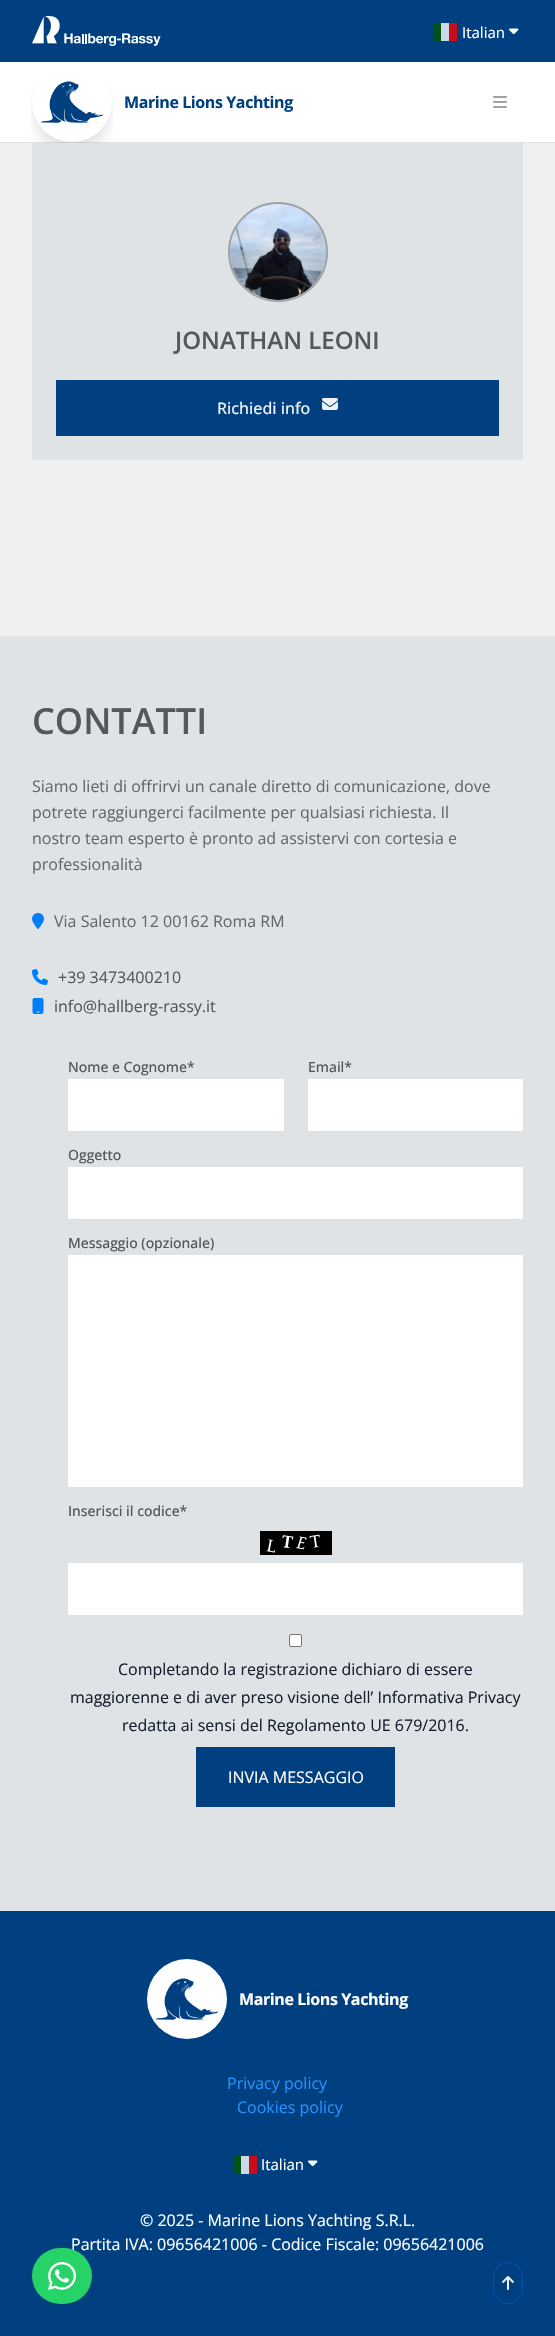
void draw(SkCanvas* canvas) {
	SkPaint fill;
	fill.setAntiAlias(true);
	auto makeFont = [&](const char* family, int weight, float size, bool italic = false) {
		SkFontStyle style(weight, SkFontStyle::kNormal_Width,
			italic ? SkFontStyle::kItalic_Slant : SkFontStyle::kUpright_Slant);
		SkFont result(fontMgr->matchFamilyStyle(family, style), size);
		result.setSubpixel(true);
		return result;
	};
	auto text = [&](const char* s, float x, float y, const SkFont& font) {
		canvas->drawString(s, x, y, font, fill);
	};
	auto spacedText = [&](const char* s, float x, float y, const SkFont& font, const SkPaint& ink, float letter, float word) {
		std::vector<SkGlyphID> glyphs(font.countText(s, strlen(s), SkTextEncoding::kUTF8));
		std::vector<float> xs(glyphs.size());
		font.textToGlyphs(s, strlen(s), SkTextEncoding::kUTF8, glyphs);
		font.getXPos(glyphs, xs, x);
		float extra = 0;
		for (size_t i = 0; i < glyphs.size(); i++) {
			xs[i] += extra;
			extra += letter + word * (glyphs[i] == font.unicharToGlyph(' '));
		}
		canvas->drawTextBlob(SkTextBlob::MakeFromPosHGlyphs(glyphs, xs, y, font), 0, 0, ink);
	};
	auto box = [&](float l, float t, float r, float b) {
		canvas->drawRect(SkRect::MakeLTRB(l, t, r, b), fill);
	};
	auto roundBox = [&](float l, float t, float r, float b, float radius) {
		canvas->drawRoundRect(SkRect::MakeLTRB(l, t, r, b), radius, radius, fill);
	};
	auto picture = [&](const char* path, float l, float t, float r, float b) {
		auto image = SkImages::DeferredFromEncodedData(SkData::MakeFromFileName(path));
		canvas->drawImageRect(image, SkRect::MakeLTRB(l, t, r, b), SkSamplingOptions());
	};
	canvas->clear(0xFF004080);
	fill.setColor(0xFFE0E3E5);
	box(0, 142, 555, 143);
	picture("image0.png", 32, 16, 161, 46);
	fill.setColor(0xFF00521A);
	box(433, 23, 441, 41);
	fill.setColor(0xFFCCD9E6);
	box(441, 23, 449, 41);
	fill.setColor(0xFFCA0D1A);
	box(449, 23, 457, 41);
	picture("image1.png", 509, 28, 519, 35);
	fill.setColor(0xFFFFFFFF);
	box(0, 62, 555, 142);
	picture("image2.png", 31, 81, 113, 143);
	picture("image3.png", 493, 96, 507, 108);
	fill.setColor(0xFFEEF0F1);
	box(0, 143, 555, 636);
	fill.setColor(0xFFE0E3E5);
	box(0, 636, 555, 1911);
	box(32, 143, 523, 460);
	picture("image4.png", 230, 204, 326, 300);
	fill.setStyle(SkPaint::kStroke_Style);
	fill.setStrokeWidth(2);
	fill.setColor(0xFF9DA2AA);
	canvas->drawCircle(278, 252, 49, fill);
	fill.setStyle(SkPaint::kFill_Style);
	fill.setColor(0xFF004080);
	box(56, 380, 499, 436);
	picture("image5.png", 322, 398, 338, 410);
	picture("image6.png", 32, 913, 44, 929);
	picture("image7.png", 32, 969, 48, 985);
	picture("image8.png", 32, 998, 44, 1014);
	fill.setColor(0xFFFFFFFF);
	box(68, 1079, 284, 1131);
	box(308, 1079, 523, 1131);
	box(68, 1167, 523, 1219);
	box(68, 1255, 523, 1487);
	picture("image9.png", 260, 1531, 332, 1555);
	box(68, 1563, 523, 1615);
	canvas->drawRoundRect(SkRect::MakeLTRB(289.5f, 1634.5f, 301.5f, 1646.5f), 1.5f, 1.5f, fill);
	fill.setStyle(SkPaint::kStroke_Style);
	fill.setStrokeWidth(1);
	fill.setColor(0xFF767676);
	canvas->drawRoundRect(SkRect::MakeLTRB(289.5f, 1634.5f, 301.5f, 1646.5f), 1.5f, 1.5f, fill);
	fill.setStyle(SkPaint::kFill_Style);
	fill.setColor(0xFF004080);
	box(196, 1747, 395, 1807);
	picture("image10.png", 147, 1959, 227, 2039);
	fill.setColor(0xFF00521A);
	box(233, 2156, 241, 2174);
	fill.setColor(0xFFCCD9E6);
	box(241, 2156, 249, 2174);
	fill.setColor(0xFFCA0D1A);
	box(249, 2156, 257, 2174);
	picture("image1.png", 308, 2160, 318, 2167);
	fill.setStyle(SkPaint::kStroke_Style);
	fill.setColor(0xFF0054A9);
	canvas->drawRoundRect(SkRect::MakeLTRB(493.5f, 2262.5f, 522.5f, 2303.5f), 14.5f, 14.5f, fill);
	picture("image12.png", 502, 2276, 514, 2290);
	auto font1 = makeFont("Open Sans", 400, 15);
	fill.setStyle(SkPaint::kFill_Style);
	fill.setColor(0xFFFFFFFF);
	text("Italian", 462, 38, font1);
	auto font2 = makeFont("Open Sans", 700, 16);
	fill.setColor(0xFF004080);
	spacedText("Marine Lions Yachting", 124, 108, font2, fill, -0.4f, 0);
	auto font3 = makeFont("Open Sans", 600, 24);
	fill.setColor(0xFF54575B);
	text("JONATHAN LEONI", 175, 349, font3);
	auto font4 = makeFont("Open Sans", 500, 16);
	fill.setColor(0xFFEEF0F1);
	text("Richiedi info", 217, 414, font4);
	auto font5 = makeFont("Open Sans", 600, 36);
	fill.setColor(0xFF54575B);
	text("CONTATTI", 32, 734, font5);
	auto font6 = makeFont("Open Sans", 400, 16);
	fill.setColor(0xFF65686E);
	text("Siamo lieti di offrirvi un canale diretto di comunicazione, dove", 32, 792, font6);
	text("potrete raggiungerci facilmente per qualsiasi richiesta. Il", 32, 818, font6);
	text("nostro team esperto è pronto ad assistervi con cortesia e", 32, 844, font6);
	text("professionalità", 32, 870, font6);
	text("Via Salento 12 00162 Roma RM", 54, 927, font6);
	fill.setColor(0xFF54575B);
	text("+39 3473400210", 58, 983, font6);
	text("info@hallberg-rassy.it", 54, 1012, font6);
	auto font7 = makeFont("Open Sans", 500, 14);
	text("Nome e Cognome*", 68, 1072, font7);
	text("Email*", 308, 1072, font7);
	text("Oggetto", 68, 1160, font7);
	text("Messaggio (opzionale)", 68, 1248, font7);
	text("Inserisci il codice*", 68, 1516, font7);
	fill.setColor(0xFF161E2F);
	text("Completando la registrazione dichiaro di essere", 118, 1675, font6);
	text("maggiorenne e di aver preso visione dell’ Informativa Privacy", 70, 1703, font6);
	text("redatta ai sensi del Regolamento UE 679/2016.", 122, 1731, font6);
	fill.setColor(0xFFFFFFFF);
	text("INVIA MESSAGGIO", 228, 1783, font6);
	spacedText("Marine Lions Yachting", 239, 2005, font2, fill, -0.4f, 0);
	fill.setColor(0xFF2492FF);
	text("Privacy policy", 227, 2089, font6);
	text("Cookies policy", 237, 2113, font6);
	fill.setColor(0xFFFFFFFF);
	text("Italian", 261, 2170, font1);
	text("© 2025 - Marine Lions Yachting S.R.L.", 140, 2226, font6);
	text("Partita IVA: 09656421006 - Codice Fiscale: 09656421006", 71, 2250, font6);
	fill.setColor(0xFF25D366);
	roundBox(32, 2248, 92, 2304, 28);
	picture("image11.png", 48, 2262, 76, 2290);
}
